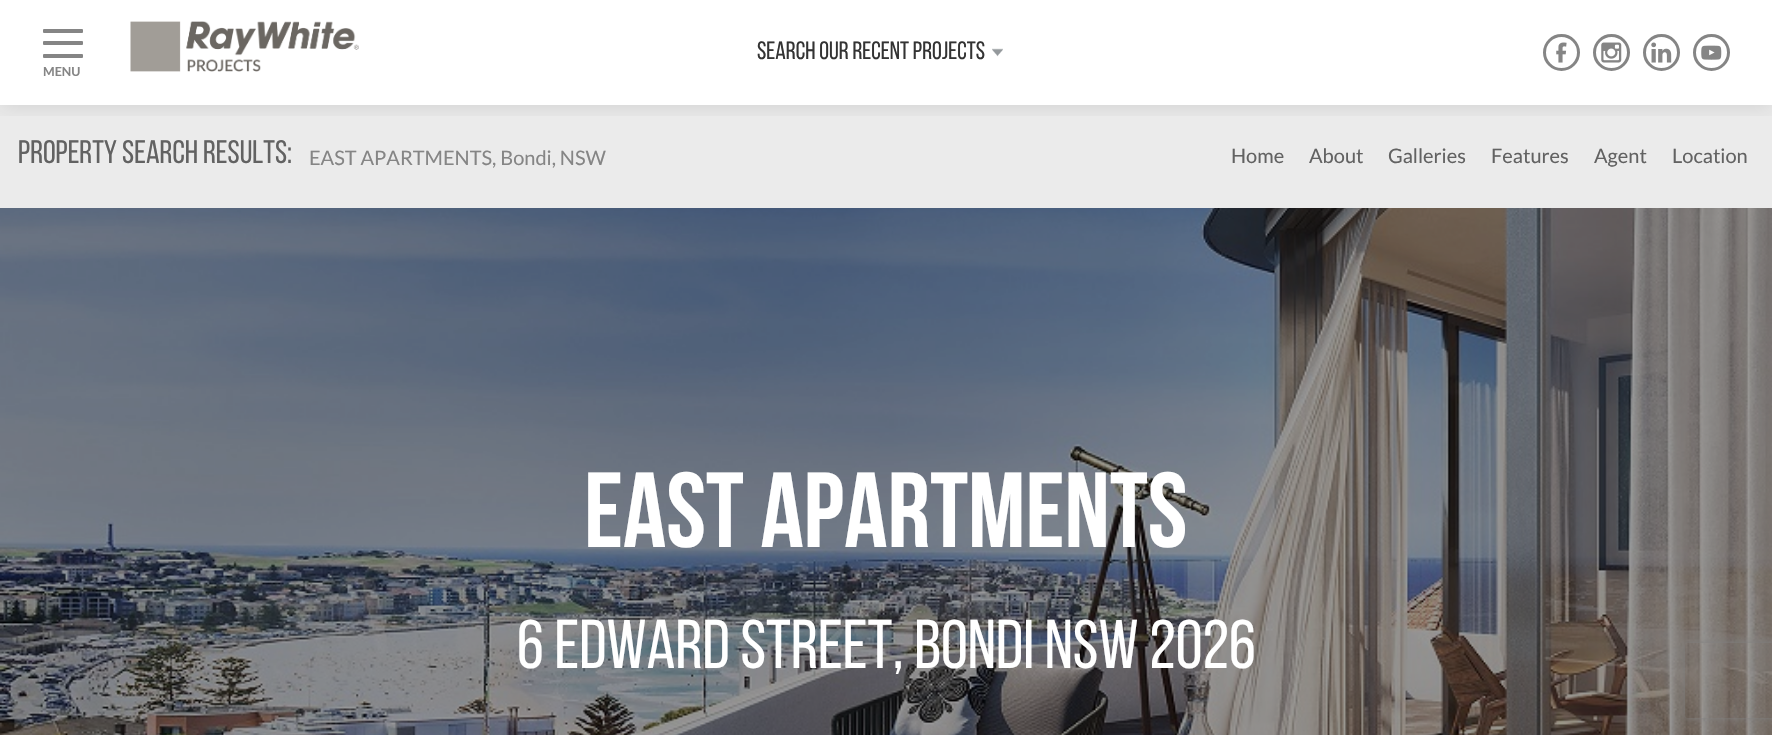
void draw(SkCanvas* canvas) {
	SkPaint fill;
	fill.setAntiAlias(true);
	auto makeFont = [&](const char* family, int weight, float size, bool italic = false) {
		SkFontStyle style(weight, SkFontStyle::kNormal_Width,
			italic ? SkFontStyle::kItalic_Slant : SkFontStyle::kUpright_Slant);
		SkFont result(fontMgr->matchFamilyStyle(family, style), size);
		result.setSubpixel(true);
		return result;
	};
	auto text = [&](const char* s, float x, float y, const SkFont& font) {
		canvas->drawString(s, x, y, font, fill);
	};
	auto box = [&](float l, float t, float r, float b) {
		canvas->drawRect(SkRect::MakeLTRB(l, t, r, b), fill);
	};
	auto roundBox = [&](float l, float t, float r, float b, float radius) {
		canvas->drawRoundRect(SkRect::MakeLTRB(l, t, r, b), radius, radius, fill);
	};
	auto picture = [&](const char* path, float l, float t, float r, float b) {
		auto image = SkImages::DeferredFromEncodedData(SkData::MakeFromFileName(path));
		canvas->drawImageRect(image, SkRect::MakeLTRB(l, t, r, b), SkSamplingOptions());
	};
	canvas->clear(0xFFFFFFFF);
	fill.setColor(0xFFEBEBEB);
	box(0, 105, 1772, 208);
	canvas->save();
	canvas->clipRect(SkRect::MakeLTRB(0, 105, 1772, 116));
	fill.setColor(0x1A000000);
	fill.setMaskFilter(SkMaskFilter::MakeBlur(kNormal_SkBlurStyle, 10));
	canvas->drawRect(SkRect::MakeLTRB(0, 3, 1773, 108), fill);
	fill.setMaskFilter(nullptr);
	canvas->restore();
	picture("image0.png", 130, 21, 359, 72);
	picture("image1.png", 992, 48, 1003, 57);
	fill.setStyle(SkPaint::kStroke_Style);
	fill.setStrokeWidth(3);
	fill.setColor(0xFF858585);
	canvas->drawCircle(1561.5f, 52.5f, 17, fill);
	picture("image2.png", 1556, 42, 1567, 63);
	canvas->drawCircle(1611.5f, 52.5f, 17, fill);
	picture("image3.png", 1601, 42, 1622, 63);
	canvas->drawCircle(1661.5f, 52.5f, 17, fill);
	picture("image4.png", 1651, 42, 1672, 63);
	canvas->drawCircle(1711.5f, 52.5f, 17, fill);
	picture("image5.png", 1701, 45, 1722, 60);
	fill.setStyle(SkPaint::kFill_Style);
	roundBox(43, 41, 83, 45, 1);
	roundBox(43, 29, 83, 33, 1);
	roundBox(43, 54, 83, 58, 1);
	picture("image6.png", 0, 208, 1772, 735);
	canvas->save();
	canvas->clipPath(SkPathBuilder(SkPathFillType::kEvenOdd).moveTo(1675, 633).lineTo(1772, 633).lineTo(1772, 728).lineTo(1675, 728).close().moveTo(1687.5f, 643).lineTo(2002.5f, 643).cubicTo(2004, 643, 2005, 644, 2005, 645.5f).lineTo(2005, 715.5f).cubicTo(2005, 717, 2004, 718, 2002.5f, 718).lineTo(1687.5f, 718).cubicTo(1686, 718, 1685, 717, 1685, 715.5f).lineTo(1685, 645.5f).cubicTo(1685, 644, 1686, 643, 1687.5f, 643).close().detach(), true);
	fill.setColor(0xFF808080);
	fill.setMaskFilter(SkMaskFilter::MakeBlur(kNormal_SkBlurStyle, 3));
	canvas->drawRoundRect(SkRect::MakeLTRB(1685, 643, 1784, 718), 2.5f, 2.5f, fill);
	fill.setMaskFilter(nullptr);
	canvas->restore();
	auto font1 = makeFont("Bebas Neue", 400, 25);
	fill.setColor(0xFF333333);
	text("Search Our Recent Projects", 757, 59, font1);
	auto font2 = makeFont("Lato", 700, 12.5f);
	fill.setColor(0xFF858585);
	text("MENU", 43, 76, font2);
	auto font3 = makeFont("Bebas Neue", 400, 32.5f);
	fill.setColor(0xFF626262);
	text("Property Search Results:", 18, 163, font3);
	auto font4 = makeFont("Lato", 400, 20);
	fill.setColor(0xFF858585);
	text("EAST APARTMENTS, Bondi, NSW", 309, 165, font4);
	fill.setColor(0xFF626262);
	text("Home", 1231, 163, font4);
	text("About", 1309, 163, font4);
	text("Galleries", 1388, 163, font4);
	text("Features", 1491, 163, font4);
	text("Agent", 1594, 163, font4);
	text("Location", 1672, 163, font4);
	auto font5 = makeFont("Bebas Neue", 700, 106.25f);
	fill.setColor(0xFFFFFFFF);
	text("EAST APARTMENTS", 584, 547, font5);
	auto font6 = makeFont("Bebas Neue", 400, 68.75f);
	text("6 EDWARD STREET, BONDI NSW 2026", 517, 668, font6);
}
